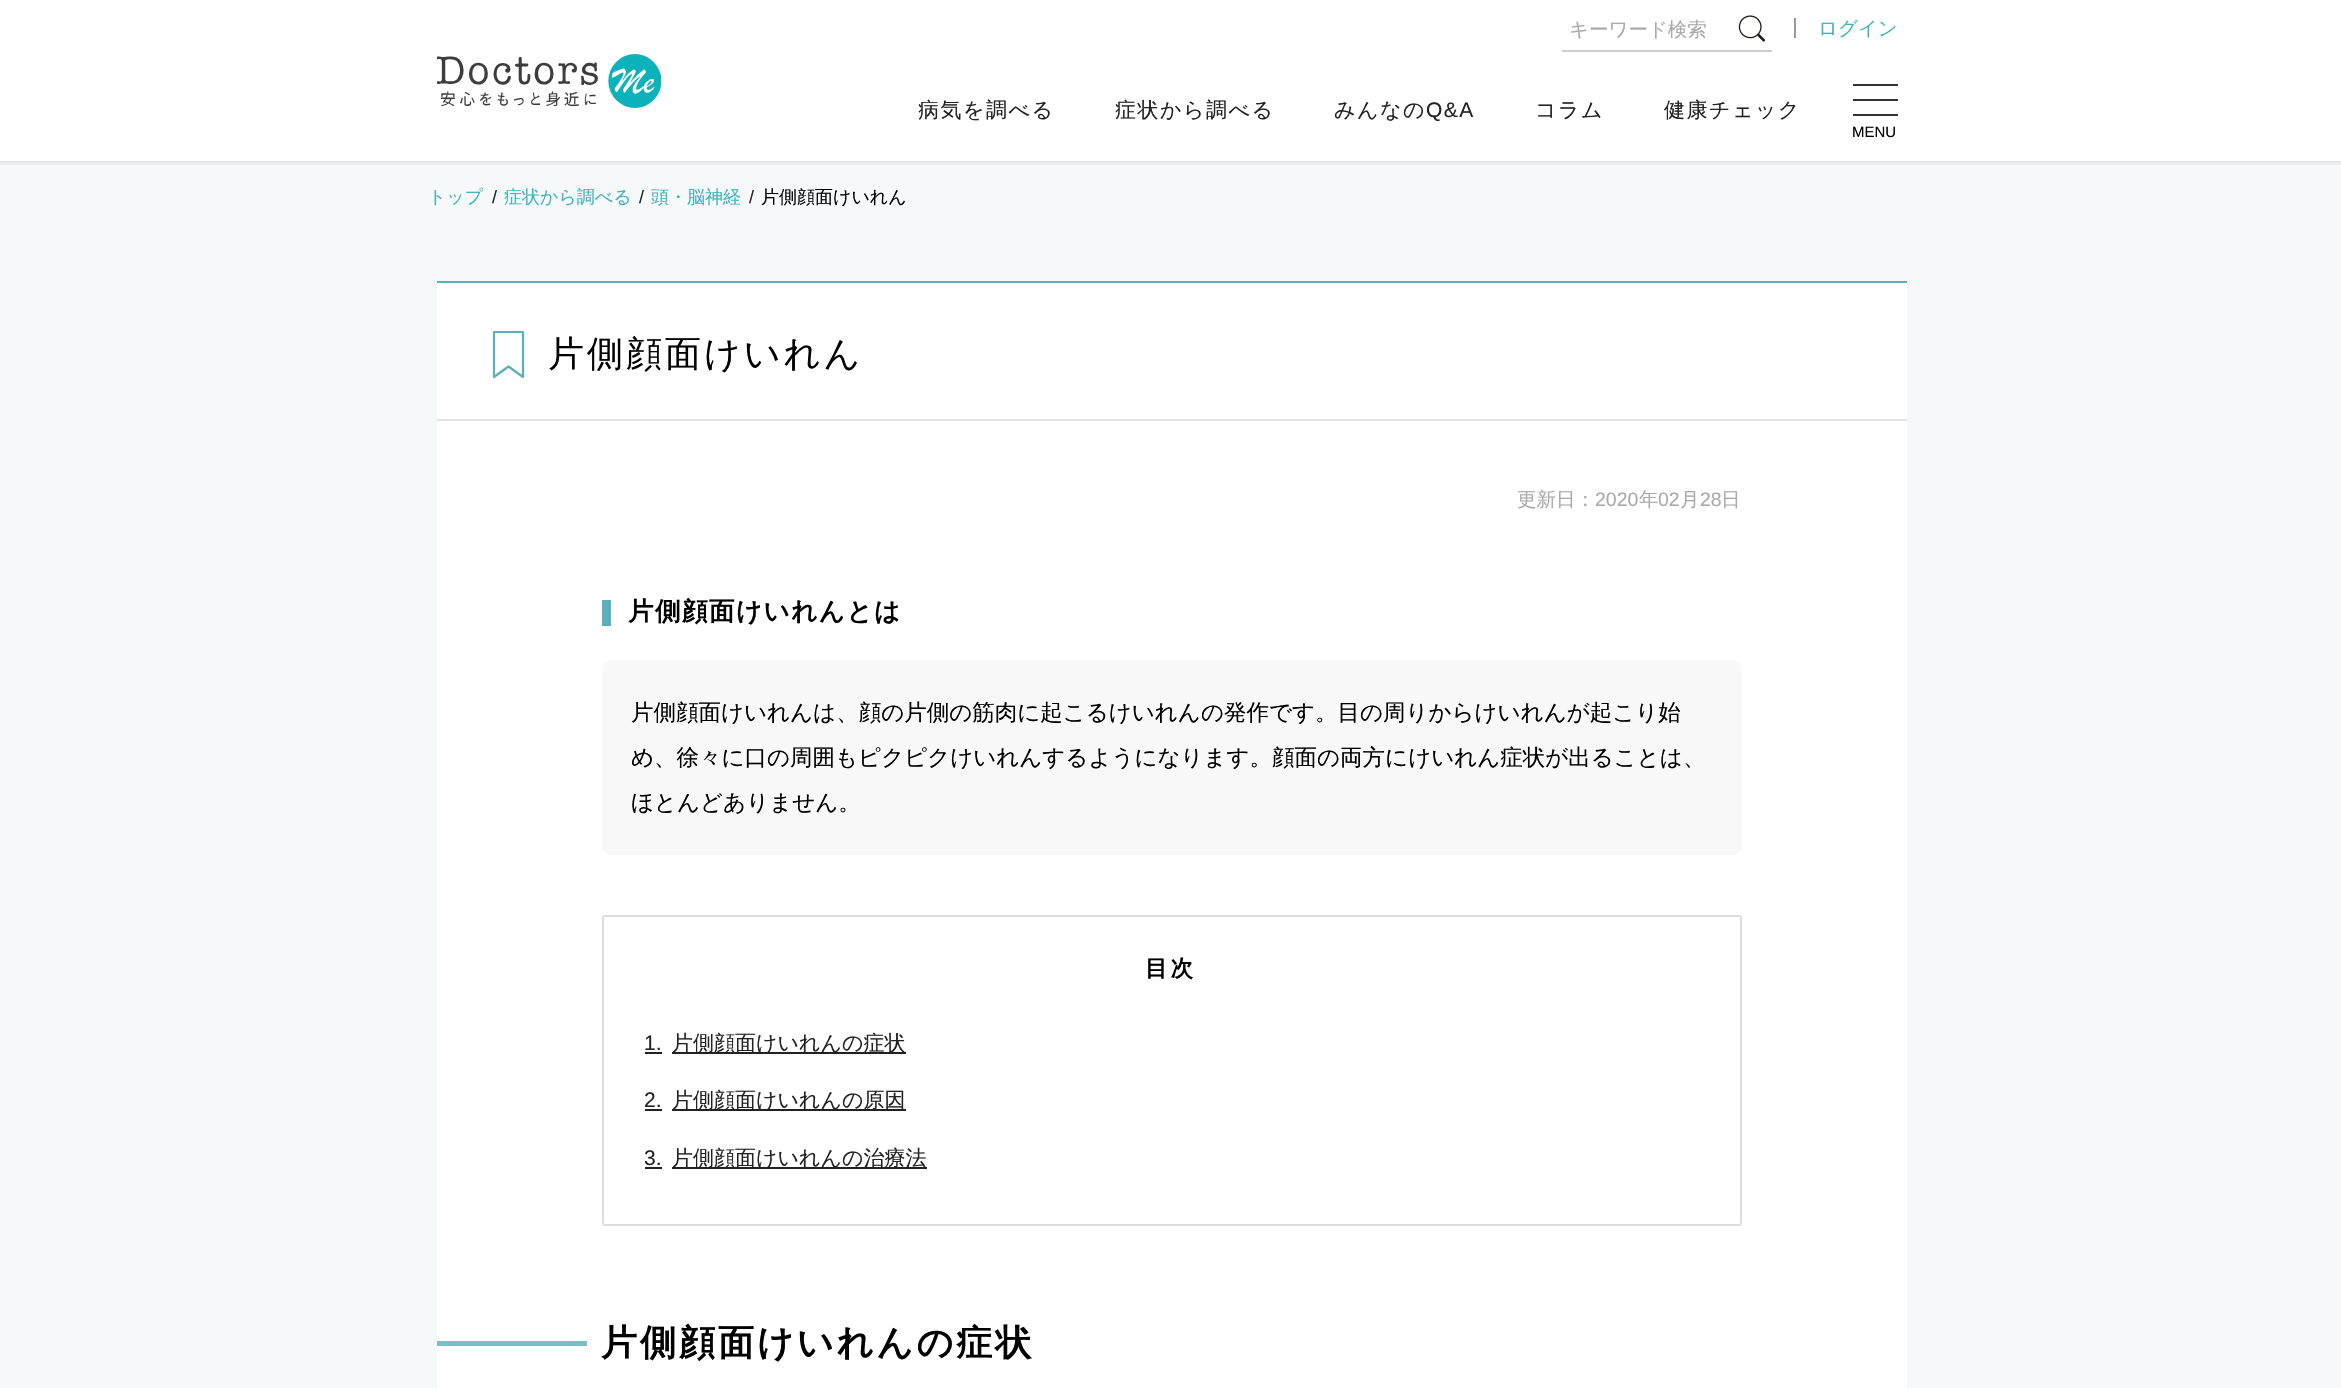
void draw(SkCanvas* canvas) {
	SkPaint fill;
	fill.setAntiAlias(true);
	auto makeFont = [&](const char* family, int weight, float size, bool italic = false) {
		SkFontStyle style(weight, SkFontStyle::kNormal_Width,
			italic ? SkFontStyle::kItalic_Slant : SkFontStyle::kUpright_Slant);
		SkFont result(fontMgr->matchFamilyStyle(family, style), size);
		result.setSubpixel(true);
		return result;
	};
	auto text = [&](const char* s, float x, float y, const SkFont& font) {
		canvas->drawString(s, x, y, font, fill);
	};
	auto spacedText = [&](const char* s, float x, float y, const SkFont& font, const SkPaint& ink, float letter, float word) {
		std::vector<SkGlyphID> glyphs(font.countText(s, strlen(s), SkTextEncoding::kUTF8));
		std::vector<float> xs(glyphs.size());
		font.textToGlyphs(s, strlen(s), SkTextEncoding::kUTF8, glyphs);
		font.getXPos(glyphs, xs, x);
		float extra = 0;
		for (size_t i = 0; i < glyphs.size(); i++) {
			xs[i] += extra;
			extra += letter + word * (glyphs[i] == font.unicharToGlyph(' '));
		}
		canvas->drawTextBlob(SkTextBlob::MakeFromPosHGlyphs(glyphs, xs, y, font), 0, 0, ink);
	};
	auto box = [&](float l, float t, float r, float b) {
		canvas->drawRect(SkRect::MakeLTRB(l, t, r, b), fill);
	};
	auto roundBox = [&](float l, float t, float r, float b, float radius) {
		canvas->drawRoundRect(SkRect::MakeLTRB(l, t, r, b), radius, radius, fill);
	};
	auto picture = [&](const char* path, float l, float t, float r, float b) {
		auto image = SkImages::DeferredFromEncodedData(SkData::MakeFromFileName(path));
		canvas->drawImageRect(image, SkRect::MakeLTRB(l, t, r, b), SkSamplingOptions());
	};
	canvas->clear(0xFFF6F8FA);
	fill.setColor(0xFFFFFFFF);
	box(0, 0, 2341, 161);
	fill.setColor(0xFFCCCCCC);
	box(1562, 50, 1772, 52);
	picture("image0.png", 1738, 15, 1765, 42);
	fill.setColor(0xFF999999);
	box(1794, 18, 1796, 38);
	picture("image1.png", 437, 54, 662, 108);
	fill.setColor(0xFF333333);
	box(1853, 84, 1898, 86);
	box(1853, 99, 1898, 101);
	box(1853, 114, 1898, 116);
	fill.setColor(0xFFE4E4E4);
	box(0, 161, 2341, 163);
	fill.setColor(0xFFEDEFF0);
	box(0, 163, 2341, 165);
	fill.setColor(0xFFFFFFFF);
	box(437, 283, 1907, 1388);
	fill.setColor(0xFF58B1BB);
	box(437, 281, 1907, 283);
	fill.setColor(0xFFE4E4E4);
	box(437, 419, 1907, 421);
	fill.setStyle(SkPaint::kStroke_Style);
	fill.setStrokeWidth(2.2f);
	fill.setStrokeCap(SkPaint::kRound_Cap);
	fill.setStrokeJoin(SkPaint::kRound_Join);
	fill.setColor(0xFF58B1BB);
	canvas->drawPath(SkPathBuilder().moveTo(523, 377).lineTo(508.5f, 366.5f).lineTo(494, 377).lineTo(494, 332).lineTo(523, 332).close().detach(), fill);
	fill.setStyle(SkPaint::kFill_Style);
	box(602, 600, 611, 626);
	fill.setColor(0xFFF8F8F8);
	roundBox(602, 660, 1742, 855, 9);
	fill.setStyle(SkPaint::kStroke_Style);
	fill.setStrokeWidth(2);
	fill.setStrokeCap(SkPaint::kButt_Cap);
	fill.setStrokeJoin(SkPaint::kMiter_Join);
	fill.setColor(0xFFDDDDDD);
	canvas->drawRoundRect(SkRect::MakeLTRB(603, 916, 1741, 1225), 2, 2, fill);
	fill.setStyle(SkPaint::kFill_Style);
	fill.setColor(0xFF222222);
	box(645, 1052, 662, 1054);
	box(672, 1052, 906, 1054);
	box(645, 1109, 662, 1111);
	box(672, 1109, 906, 1111);
	box(645, 1167, 662, 1169);
	box(672, 1167, 927, 1169);
	fill.setColor(0xFF79C1C9);
	box(437, 1341, 587, 1346);
	auto font1 = makeFont("WenQuanYi Zen Hei", 500, 19.5f);
	fill.setColor(0xFFAAAAAA);
	text("キーワード検索", 1569, 36, font1);
	fill.setColor(0xFF40B4BF);
	text("ログイン", 1818, 35, font1);
	auto font2 = makeFont("WenQuanYi Zen Hei", 500, 21);
	fill.setColor(0xFF222222);
	spacedText("病気を調べる", 918, 117, font2, fill, 1.5f, 0);
	spacedText("症状から調べる", 1115, 117, font2, fill, 1.5f, 0);
	spacedText("みんなの", 1334, 117, font2, fill, 1.5f, 0);
	auto font3 = makeFont("Liberation Sans", 400, 21);
	spacedText("Q&A", 1426, 117, font3, fill, 1.5f, 0);
	spacedText("コラム", 1535, 117, font2, fill, 1.5f, 0);
	spacedText("健康チェック", 1664, 117, font2, fill, 1.5f, 0);
	auto font4 = makeFont("Liberation Sans", 400, 15);
	fill.setColor(0xFF000000);
	text("MENU", 1852, 137, font4);
	auto font5 = makeFont("WenQuanYi Zen Hei", 500, 18);
	fill.setColor(0xFF40B4BF);
	text("トップ", 428, 203, font5);
	auto font6 = makeFont("Liberation Sans", 400, 18);
	fill.setColor(0xFF222222);
	spacedText("/", 492, 203, font6, fill, -1, 0);
	fill.setColor(0xFF40B4BF);
	text("症状から調べる", 504, 203, font5);
	fill.setColor(0xFF222222);
	spacedText("/", 639, 203, font6, fill, -1, 0);
	fill.setColor(0xFF40B4BF);
	text("頭・脳神経", 651, 203, font5);
	fill.setColor(0xFF222222);
	spacedText("/", 749, 203, font6, fill, -1, 0);
	fill.setColor(0xFF000000);
	text("片側顔面けいれん", 761, 203, font5);
	auto font7 = makeFont("WenQuanYi Zen Hei", 500, 36);
	spacedText("片側顔面けいれん", 548, 366, font7, fill, 3, 0);
	fill.setColor(0xFFAAAAAA);
	text("更新日：", 1517, 506, font1);
	auto font8 = makeFont("Liberation Sans", 400, 19.5f);
	text("2020", 1595, 506, font8);
	text("年", 1639, 506, font1);
	text("02", 1658, 506, font8);
	text("月", 1680, 506, font1);
	text("28", 1700, 506, font8);
	text("日", 1721, 506, font1);
	auto font9 = makeFont("WenQuanYi Zen Hei", 700, 25.5f);
	fill.setColor(0xFF000000);
	spacedText("片側顔面けいれんとは", 628, 620, font9, fill, 1.5f, 0);
	auto font10 = makeFont("WenQuanYi Zen Hei", 500, 22.5f);
	text("片側顔面けいれんは、顔の片側の筋肉に起こるけいれんの発作です。目の周りからけいれんが起こり始", 631, 720, font10);
	text("め、徐々に口の周囲もピクピクけいれんするようになります。顔面の両方にけいれん症状が出ることは、", 631, 765, font10);
	text("ほとんどありません。", 631, 810, font10);
	auto font11 = makeFont("WenQuanYi Zen Hei", 700, 22.5f);
	spacedText("目次", 1145, 976, font11, fill, 3, 0);
	fill.setColor(0xFF222222);
	text("1.", 644, 1050, font3);
	text("片側顔面けいれんの症状", 672, 1050, font2);
	text("2.", 644, 1107, font3);
	text("片側顔面けいれんの原因", 672, 1107, font2);
	text("3.", 644, 1165, font3);
	text("片側顔面けいれんの治療法", 672, 1165, font2);
	auto font12 = makeFont("WenQuanYi Zen Hei", 700, 36);
	fill.setColor(0xFF000000);
	spacedText("片側顔面けいれんの症状", 601, 1355, font12, fill, 3, 0);
}
